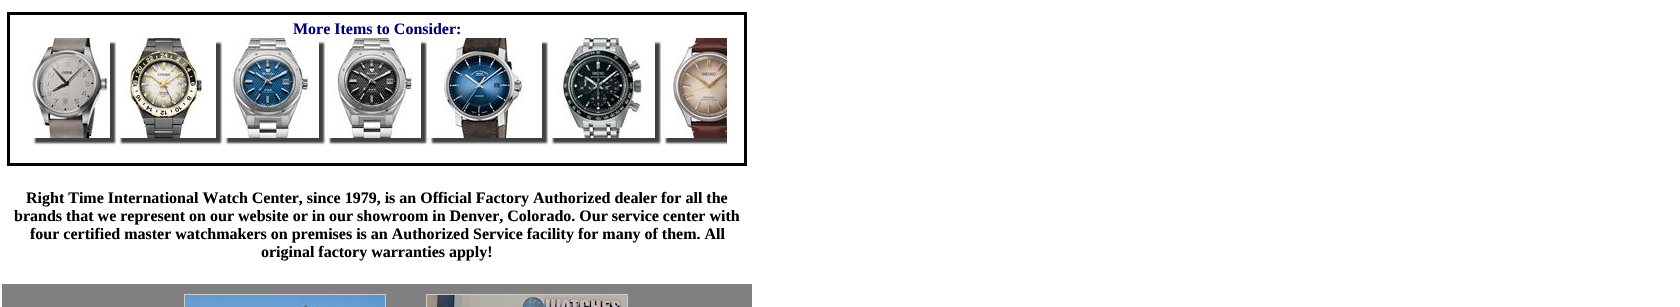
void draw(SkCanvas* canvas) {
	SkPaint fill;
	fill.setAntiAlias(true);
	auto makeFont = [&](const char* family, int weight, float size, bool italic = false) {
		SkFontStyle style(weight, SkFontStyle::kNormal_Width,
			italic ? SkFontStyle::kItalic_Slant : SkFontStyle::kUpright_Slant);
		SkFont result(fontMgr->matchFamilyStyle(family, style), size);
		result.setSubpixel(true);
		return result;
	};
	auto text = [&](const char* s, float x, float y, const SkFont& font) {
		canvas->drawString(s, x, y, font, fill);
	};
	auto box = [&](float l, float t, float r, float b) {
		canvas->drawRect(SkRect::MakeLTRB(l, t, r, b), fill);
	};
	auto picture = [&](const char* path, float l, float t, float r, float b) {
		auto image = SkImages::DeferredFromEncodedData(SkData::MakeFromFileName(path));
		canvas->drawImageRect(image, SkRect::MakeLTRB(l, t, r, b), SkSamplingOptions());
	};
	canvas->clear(0xFFFFFFFF);
	fill.setColor(0xBF000000);
	fill.setMaskFilter(SkMaskFilter::MakeBlur(kNormal_SkBlurStyle, 1));
	canvas->drawRect(SkRect::MakeLTRB(35, 43, 115, 143), fill);
	fill.setMaskFilter(nullptr);
	picture("image0.png", 30, 38, 110, 138);
	canvas->save();
	canvas->clipPath(SkPathBuilder(SkPathFillType::kEvenOdd).moveTo(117, 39).lineTo(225, 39).lineTo(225, 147).lineTo(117, 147).close().moveTo(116, 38).lineTo(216, 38).lineTo(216, 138).lineTo(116, 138).close().detach(), true);
	fill.setMaskFilter(SkMaskFilter::MakeBlur(kNormal_SkBlurStyle, 1));
	canvas->drawRect(SkRect::MakeLTRB(121, 43, 221, 143), fill);
	fill.setMaskFilter(nullptr);
	canvas->restore();
	picture("image1.png", 116, 38, 204, 138);
	canvas->save();
	canvas->clipPath(SkPathBuilder(SkPathFillType::kEvenOdd).moveTo(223, 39).lineTo(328, 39).lineTo(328, 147).lineTo(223, 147).close().moveTo(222, 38).lineTo(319, 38).lineTo(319, 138).lineTo(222, 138).close().detach(), true);
	fill.setMaskFilter(SkMaskFilter::MakeBlur(kNormal_SkBlurStyle, 1));
	canvas->drawRect(SkRect::MakeLTRB(227, 43, 324, 143), fill);
	fill.setMaskFilter(nullptr);
	canvas->restore();
	picture("image2.png", 222, 38, 310, 138);
	canvas->save();
	canvas->clipPath(SkPathBuilder(SkPathFillType::kEvenOdd).moveTo(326, 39).lineTo(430, 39).lineTo(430, 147).lineTo(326, 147).close().moveTo(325, 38).lineTo(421, 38).lineTo(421, 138).lineTo(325, 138).close().detach(), true);
	fill.setMaskFilter(SkMaskFilter::MakeBlur(kNormal_SkBlurStyle, 1));
	canvas->drawRect(SkRect::MakeLTRB(330, 43, 426, 143), fill);
	fill.setMaskFilter(nullptr);
	canvas->restore();
	picture("image3.png", 325, 38, 413, 138);
	canvas->save();
	canvas->clipPath(SkPathBuilder(SkPathFillType::kEvenOdd).moveTo(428, 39).lineTo(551, 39).lineTo(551, 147).lineTo(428, 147).close().moveTo(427, 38).lineTo(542, 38).lineTo(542, 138).lineTo(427, 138).close().detach(), true);
	fill.setMaskFilter(SkMaskFilter::MakeBlur(kNormal_SkBlurStyle, 1));
	canvas->drawRect(SkRect::MakeLTRB(432, 43, 547, 143), fill);
	fill.setMaskFilter(nullptr);
	canvas->restore();
	picture("image4.png", 427, 38, 523, 138);
	canvas->save();
	canvas->clipPath(SkPathBuilder(SkPathFillType::kEvenOdd).moveTo(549, 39).lineTo(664, 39).lineTo(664, 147).lineTo(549, 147).close().moveTo(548, 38).lineTo(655, 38).lineTo(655, 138).lineTo(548, 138).close().detach(), true);
	fill.setMaskFilter(SkMaskFilter::MakeBlur(kNormal_SkBlurStyle, 1));
	canvas->drawRect(SkRect::MakeLTRB(553, 43, 660, 143), fill);
	fill.setMaskFilter(nullptr);
	canvas->restore();
	picture("image5.png", 548, 38, 644, 138);
	canvas->save();
	canvas->clipRect(SkRect::MakeLTRB(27, 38, 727, 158));
	fill.setMaskFilter(SkMaskFilter::MakeBlur(kNormal_SkBlurStyle, 1));
	canvas->drawRect(SkRect::MakeLTRB(666, 43, 771, 143), fill);
	fill.setMaskFilter(nullptr);
	canvas->restore();
	picture("image6.png", 661, 38, 727, 138);
	fill.setStyle(SkPaint::kStroke_Style);
	fill.setStrokeWidth(3);
	fill.setColor(0xFF000000);
	canvas->drawRect(SkRect::MakeLTRB(8.5f, 13.5f, 745.5f, 164.5f), fill);
	fill.setStyle(SkPaint::kFill_Style);
	fill.setColor(0xFF808080);
	box(2, 284, 752, 307);
	fill.setStyle(SkPaint::kStroke_Style);
	fill.setStrokeWidth(1);
	fill.setColor(0xFFCCCCCC);
	canvas->drawRect(SkRect::MakeLTRB(184.5f, 294.5f, 385.5f, 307.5f), fill);
	picture("image7.png", 185, 295, 385, 307);
	canvas->drawRect(SkRect::MakeLTRB(426.5f, 294.5f, 627.5f, 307.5f), fill);
	picture("image8.png", 427, 295, 627, 307);
	auto font1 = makeFont("Liberation Serif", 700, 16);
	fill.setStyle(SkPaint::kFill_Style);
	fill.setColor(0xFF000080);
	text("More Items to Consider:", 293, 34, font1);
	fill.setColor(0xFF000000);
	text("Right Time International Watch Center, since 1979, is an Official Factory Authorized dealer for all the", 26, 203, font1);
	text("brands that we represent on our website or in our showroom in Denver, Colorado. Our service center with", 14, 221, font1);
	text("four certified master watchmakers on premises is an Authorized Service facility for many of them. All", 30, 239, font1);
	text("original factory warranties apply!", 261, 257, font1);
}
